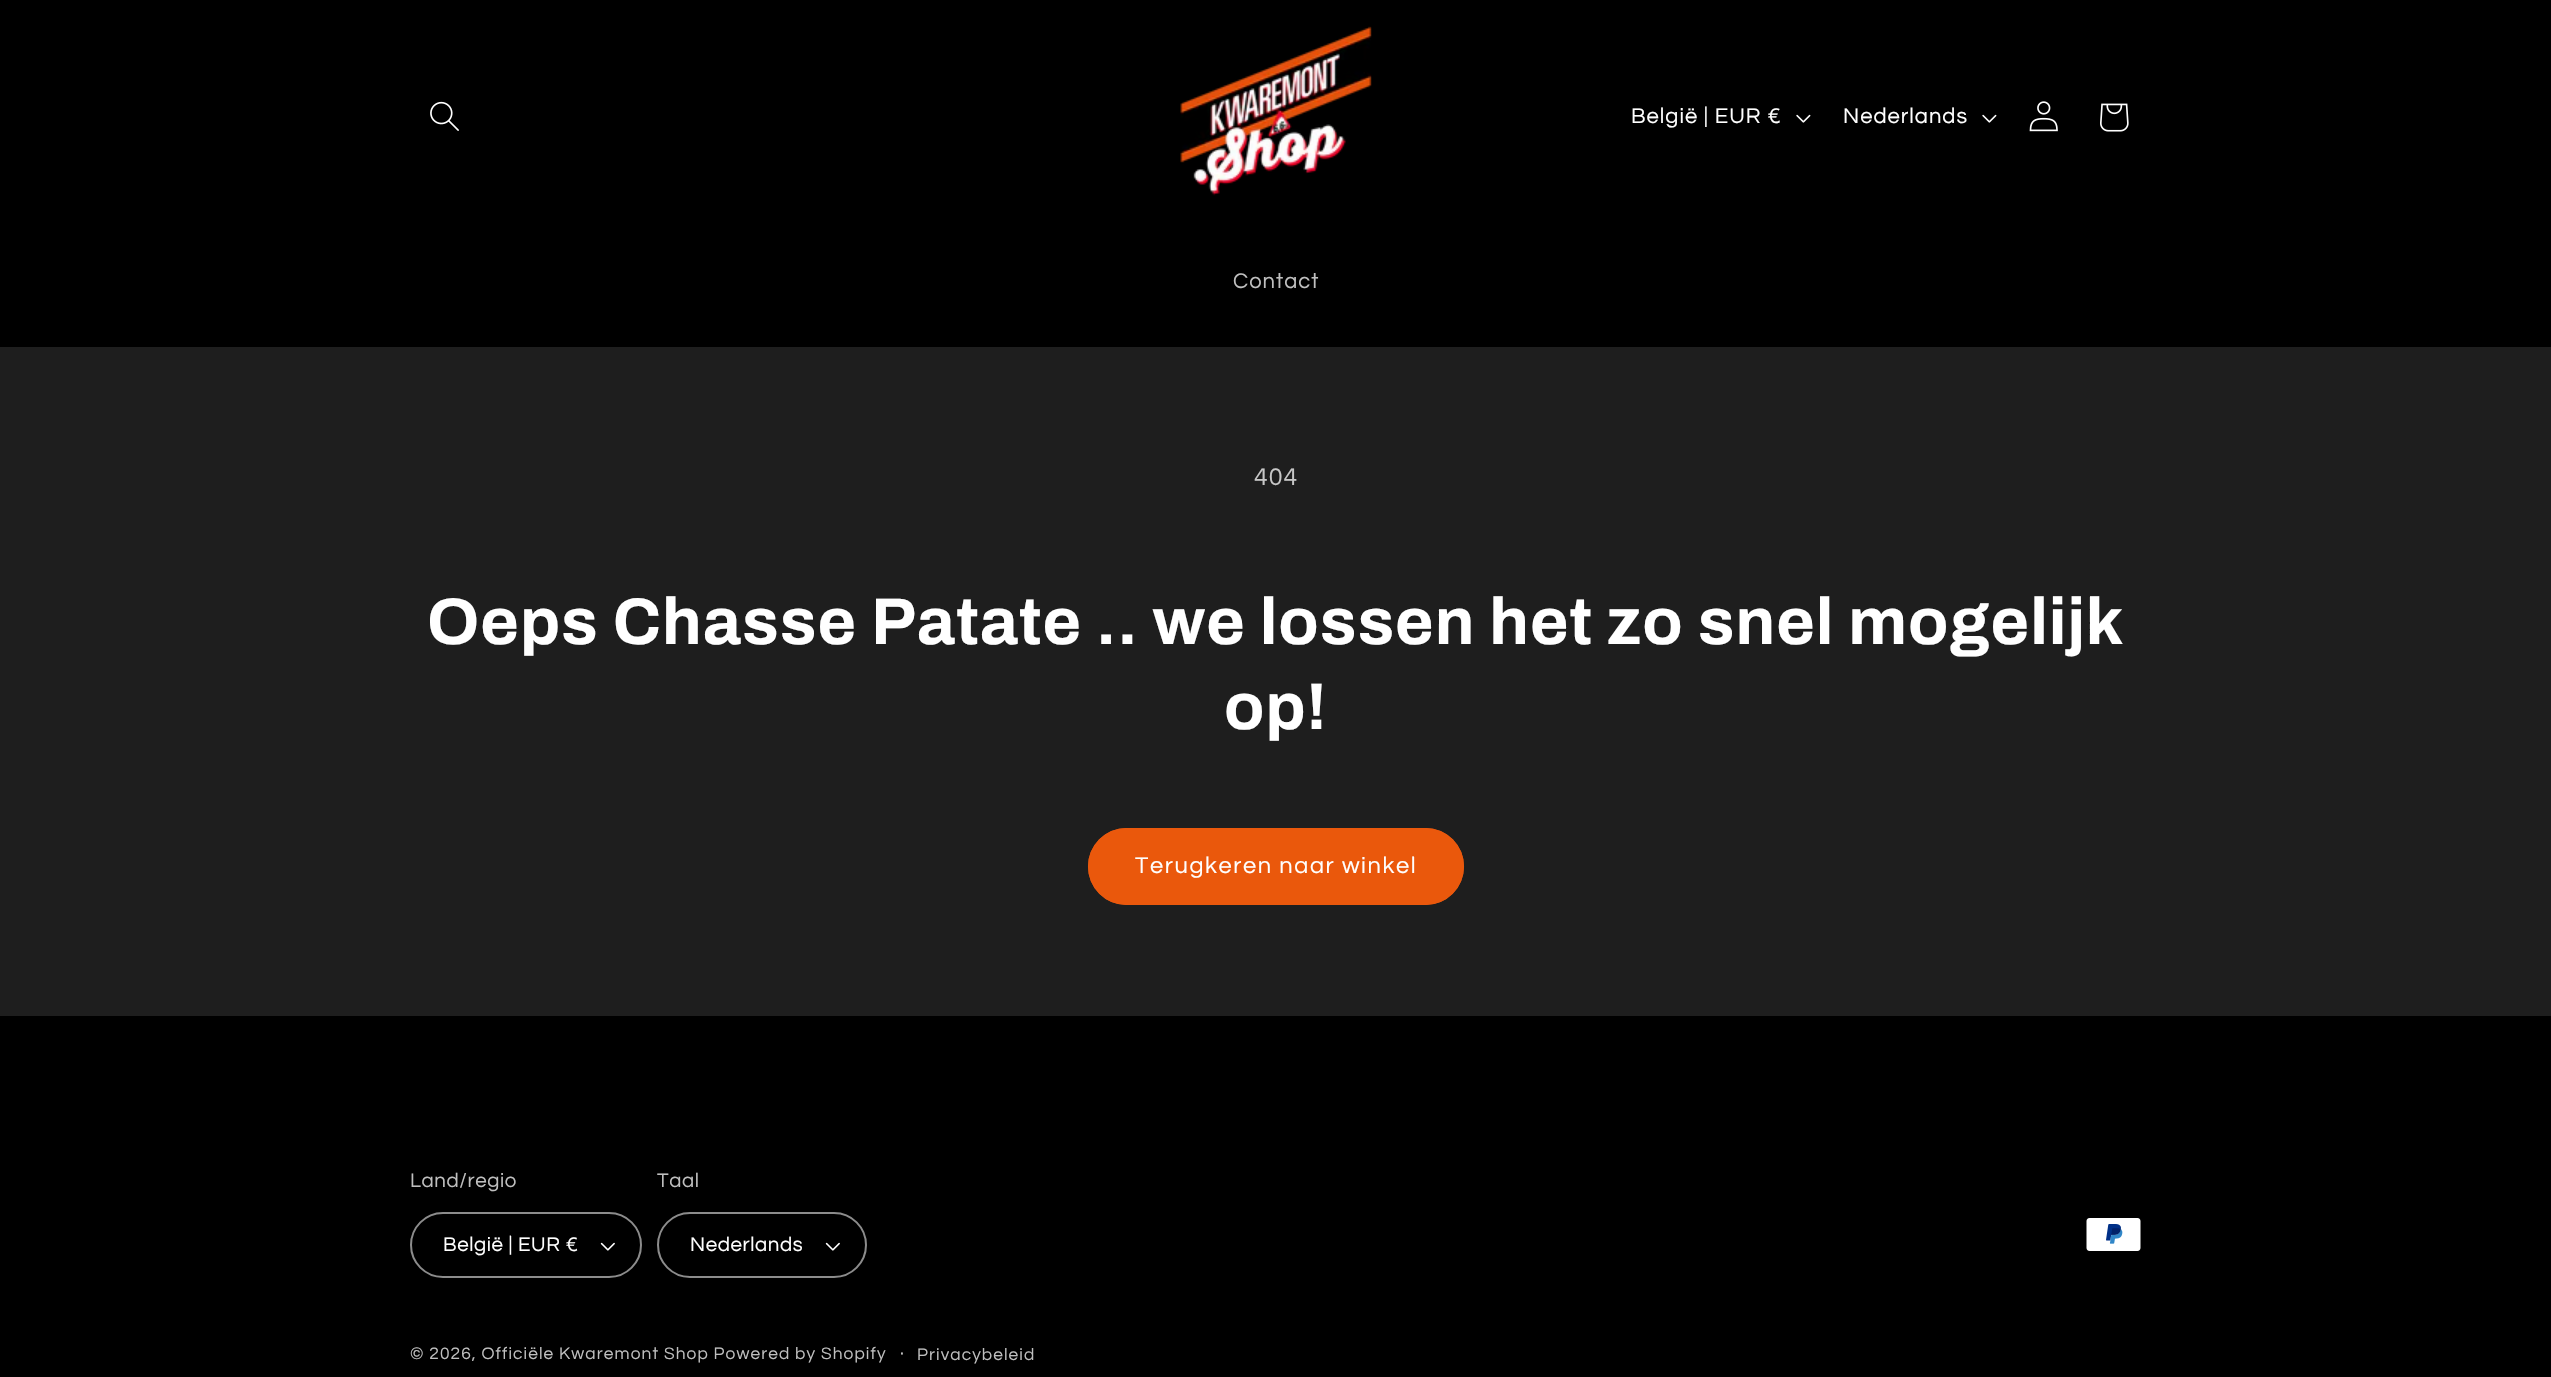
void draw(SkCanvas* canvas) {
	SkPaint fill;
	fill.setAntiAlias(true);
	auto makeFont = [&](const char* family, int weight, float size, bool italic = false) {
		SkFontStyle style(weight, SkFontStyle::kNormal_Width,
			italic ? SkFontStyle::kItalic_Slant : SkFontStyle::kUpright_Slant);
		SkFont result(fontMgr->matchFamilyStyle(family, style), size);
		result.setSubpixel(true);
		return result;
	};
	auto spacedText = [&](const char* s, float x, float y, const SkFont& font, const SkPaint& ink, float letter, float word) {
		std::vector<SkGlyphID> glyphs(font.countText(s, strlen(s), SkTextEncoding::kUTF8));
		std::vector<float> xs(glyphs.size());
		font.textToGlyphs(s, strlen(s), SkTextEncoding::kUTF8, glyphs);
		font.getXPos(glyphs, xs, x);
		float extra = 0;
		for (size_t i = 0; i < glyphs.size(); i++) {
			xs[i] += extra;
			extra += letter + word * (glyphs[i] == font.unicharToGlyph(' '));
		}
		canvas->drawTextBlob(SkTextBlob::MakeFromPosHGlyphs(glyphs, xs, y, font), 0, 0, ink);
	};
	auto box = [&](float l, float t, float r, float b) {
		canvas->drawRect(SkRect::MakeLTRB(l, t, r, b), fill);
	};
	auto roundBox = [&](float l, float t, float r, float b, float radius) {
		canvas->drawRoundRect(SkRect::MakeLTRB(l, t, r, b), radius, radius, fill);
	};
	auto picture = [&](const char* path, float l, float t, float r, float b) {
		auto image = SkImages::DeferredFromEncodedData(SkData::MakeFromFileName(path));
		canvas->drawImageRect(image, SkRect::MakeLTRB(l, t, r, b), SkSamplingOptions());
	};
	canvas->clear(0xFF1E1E1E);
	fill.setColor(0xFF000000);
	box(0, 0, 2551, 347);
	picture("image0.png", 430, 101, 459, 131);
	picture("image1.png", 1180, 26, 1372, 196);
	picture("image2.png", 1796, 114, 1811, 123);
	picture("image2.png", 1982, 114, 1997, 123);
	picture("image3.png", 2029, 101, 2058, 132);
	picture("image4.png", 2100, 103, 2129, 132);
	fill.setColor(0xFFEA580C);
	roundBox(1088, 828, 1464, 905, 38.5f);
	fill.setStyle(SkPaint::kStroke_Style);
	fill.setStrokeWidth(3);
	canvas->drawRoundRect(SkRect::MakeLTRB(1089.5f, 829.5f, 1462.5f, 903.5f), 37, 37, fill);
	fill.setStyle(SkPaint::kFill_Style);
	fill.setColor(0xFF000000);
	box(0, 1016, 2551, 1377);
	picture("image5.png", 600, 1242, 615, 1251);
	fill.setStyle(SkPaint::kStroke_Style);
	fill.setStrokeWidth(2);
	fill.setColor(0xFF8C8C8C);
	canvas->drawRoundRect(SkRect::MakeLTRB(411, 1213, 641, 1277), 32, 32, fill);
	picture("image5.png", 825, 1242, 840, 1251);
	canvas->drawRoundRect(SkRect::MakeLTRB(658, 1213, 866, 1277), 32, 32, fill);
	picture("image6.png", 2086, 1218, 2141, 1251);
	auto font1 = makeFont("Questrial", 400, 22);
	fill.setStyle(SkPaint::kFill_Style);
	fill.setColor(0xFFFFFFFF);
	spacedText("België | EUR €", 1631, 123, font1, fill, 1, 0);
	spacedText("Nederlands", 1843, 123, font1, fill, 1, 0);
	fill.setColor(0xFFBFBFBF);
	spacedText("Contact", 1233, 288, font1, fill, 1, 0);
	auto font2 = makeFont("Questrial", 400, 25);
	fill.setColor(0xFFC7C7C7);
	spacedText("404", 1254, 485, font2, fill, 1, 0);
	auto font3 = makeFont("Archivo", 700, 66);
	fill.setColor(0xFFFFFFFF);
	spacedText("Oeps Chasse Patate .. we lossen het zo snel mogelijk", 427, 644, font3, fill, 1, 0);
	spacedText("op!", 1224, 729, font3, fill, 1, 0);
	auto font4 = makeFont("Questrial", 400, 23.6f);
	spacedText("Terugkeren naar winkel", 1135, 873, font4, fill, 1.6f, 0);
	auto font5 = makeFont("Questrial", 400, 20.5f);
	fill.setColor(0xFFBFBFBF);
	spacedText("Land/regio", 410, 1187, font5, fill, 0.6f, 0);
	fill.setColor(0xFFFFFFFF);
	spacedText("België | EUR €", 443, 1251, font5, fill, 0.6f, 0);
	fill.setColor(0xFFBFBFBF);
	spacedText("Taal", 657, 1187, font5, fill, 0.6f, 0);
	fill.setColor(0xFFFFFFFF);
	spacedText("Nederlands", 690, 1251, font5, fill, 0.6f, 0);
	auto font6 = makeFont("Questrial", 400, 17.3f);
	fill.setColor(0xFFBFBFBF);
	spacedText("© 2026, Officiële Kwaremont Shop Powered by Shopify", 410, 1359, font6, fill, 1.1f, 0);
	auto font7 = makeFont("Questrial", 400, 19);
	spacedText("·", 900, 1359, font7, fill, 1.1f, 0);
	spacedText("Privacybeleid", 917, 1360, font6, fill, 1.1f, 0);
}
